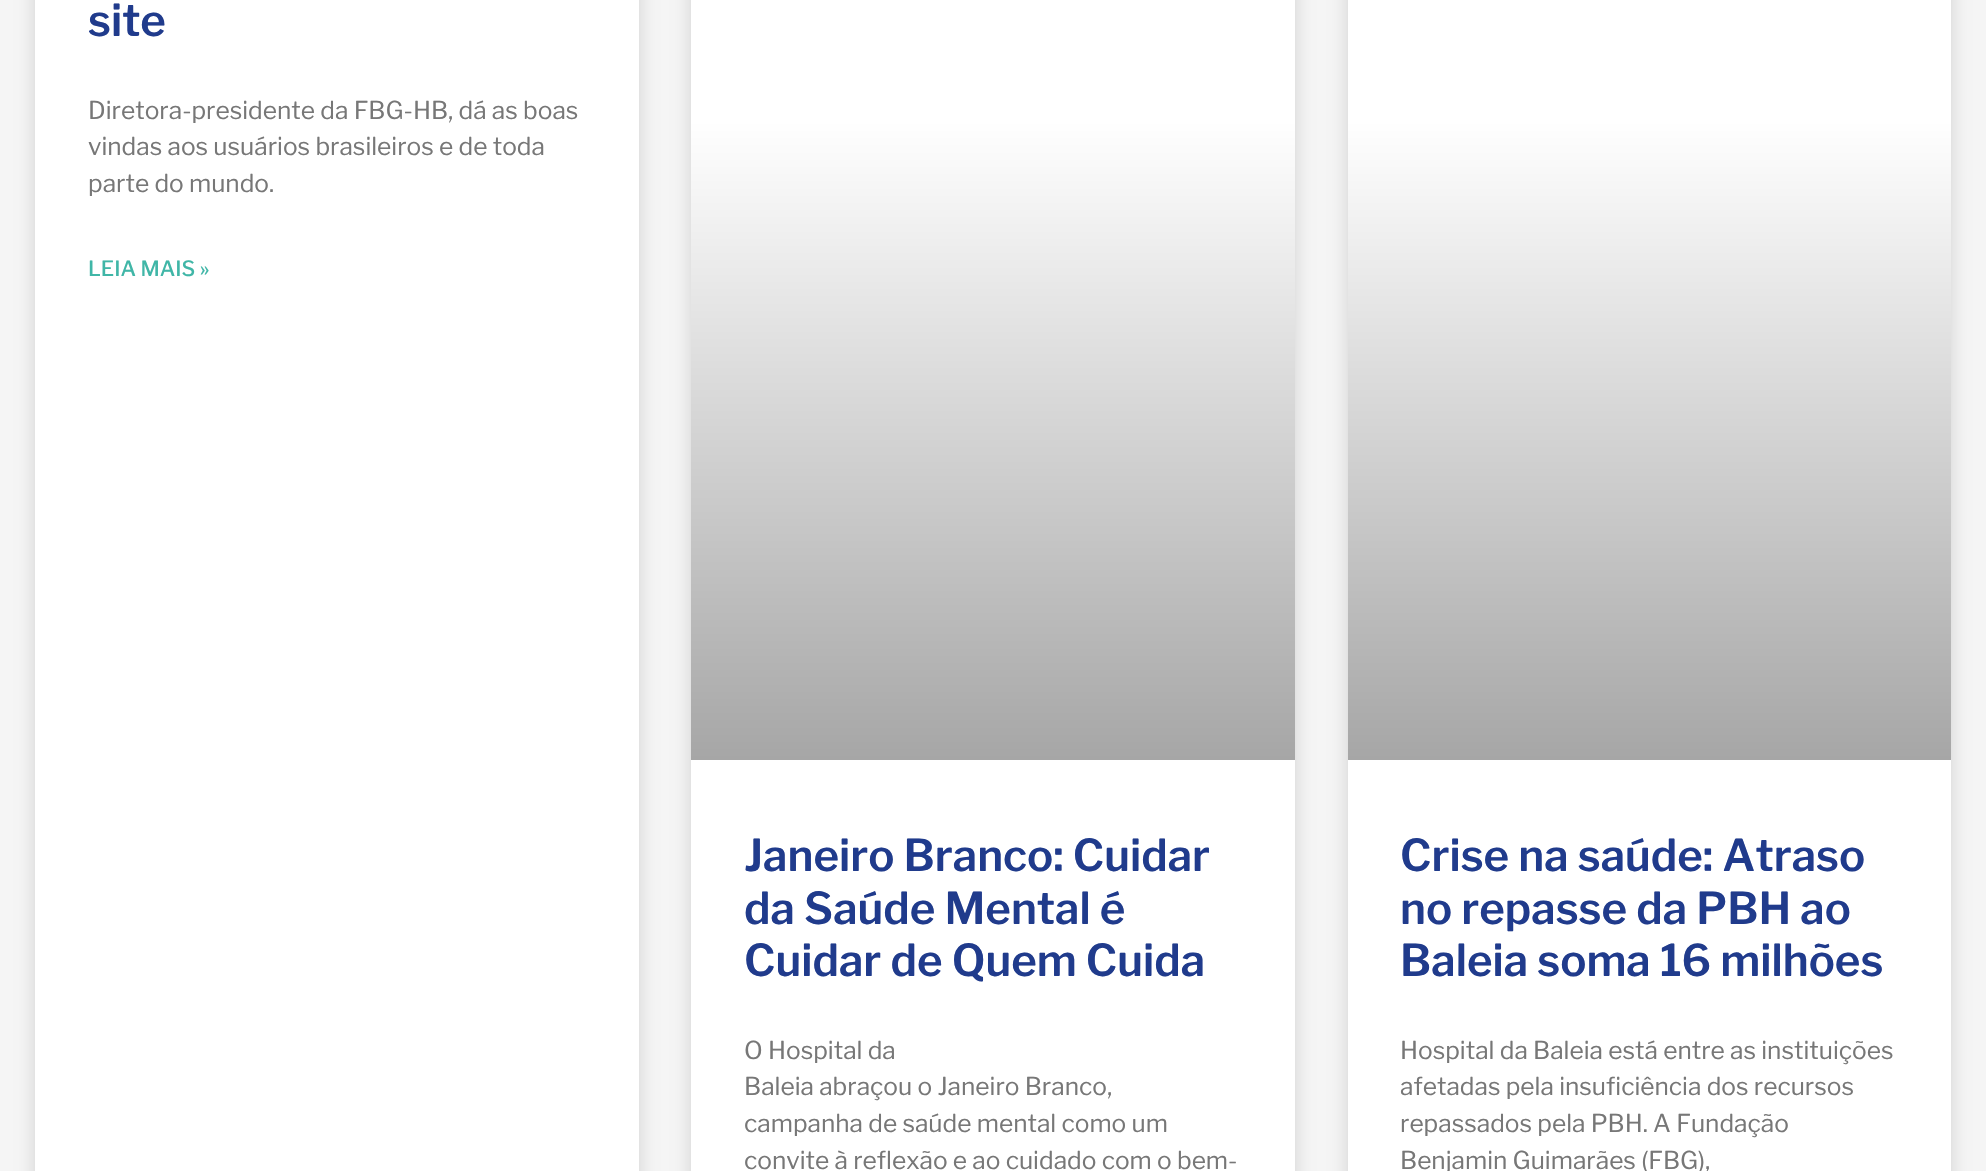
void draw(SkCanvas* canvas) {
	SkPaint fill;
	fill.setAntiAlias(true);
	auto makeFont = [&](const char* family, int weight, float size, bool italic = false) {
		SkFontStyle style(weight, SkFontStyle::kNormal_Width,
			italic ? SkFontStyle::kItalic_Slant : SkFontStyle::kUpright_Slant);
		SkFont result(fontMgr->matchFamilyStyle(family, style), size);
		result.setSubpixel(true);
		return result;
	};
	auto text = [&](const char* s, float x, float y, const SkFont& font) {
		canvas->drawString(s, x, y, font, fill);
	};
	auto box = [&](float l, float t, float r, float b) {
		canvas->drawRect(SkRect::MakeLTRB(l, t, r, b), fill);
	};
	canvas->clear(0xFFF5F5F5);
	fill.setColor(0x26000000);
	fill.setMaskFilter(SkMaskFilter::MakeBlur(kNormal_SkBlurStyle, 9));
	canvas->drawRoundRect(SkRect::MakeLTRB(35, -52, 639, 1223), 25, 25, fill);
	fill.setMaskFilter(nullptr);
	fill.setColor(0xFFFFFFFF);
	box(35, 0, 639, 1171);
	fill.setColor(0x26000000);
	fill.setMaskFilter(SkMaskFilter::MakeBlur(kNormal_SkBlurStyle, 9));
	canvas->drawRoundRect(SkRect::MakeLTRB(691, -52, 1295, 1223), 25, 25, fill);
	fill.setMaskFilter(nullptr);
	fill.setColor(0xFFFFFFFF);
	box(691, 760, 1295, 1171);
	{
		const SkColor colors[] = {0xFFA6A6A6, 0xFFFFFFFF};
		const float stops[] = {0, 0.75f};
		const SkPoint ends[] = {{993, 760}, {993, -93}};
		fill.setShader(SkGradientShader::MakeLinear(ends, colors, stops, 2, SkTileMode::kClamp));
		fill.setAlpha(255);
	}
	box(691, 0, 1295, 760);
	fill.setShader(nullptr);
	fill.setColor(0x26000000);
	fill.setMaskFilter(SkMaskFilter::MakeBlur(kNormal_SkBlurStyle, 9));
	canvas->drawRoundRect(SkRect::MakeLTRB(1348, -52, 1951, 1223), 25, 25, fill);
	fill.setMaskFilter(nullptr);
	fill.setColor(0xFFFFFFFF);
	box(1348, 760, 1951, 1171);
	{
		const SkColor colors[] = {0xFFA6A6A6, 0xFFFFFFFF};
		const float stops[] = {0, 0.75f};
		const SkPoint ends[] = {{1649, 760}, {1649, -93}};
		fill.setShader(SkGradientShader::MakeLinear(ends, colors, stops, 2, SkTileMode::kClamp));
		fill.setAlpha(255);
	}
	box(1348, 0, 1951, 760);
	auto font1 = makeFont("Libre Franklin", 600, 43.75f);
	fill.setShader(nullptr);
	fill.setColor(0xFF203B8C);
	text("site", 88, 36, font1);
	auto font2 = makeFont("Libre Franklin", 400, 24.5f);
	fill.setColor(0xFF777777);
	text("Diretora-presidente da FBG-HB, dá as boas", 88, 119, font2);
	text("vindas aos usuários brasileiros e de toda", 88, 155, font2);
	text("parte do mundo.", 88, 192, font2);
	auto font3 = makeFont("Libre Franklin", 500, 21);
	fill.setColor(0xFF40B6A7);
	text("LEIA MAIS »", 88, 276, font3);
	fill.setColor(0xFF203B8C);
	text("Janeiro Branco: Cuidar", 744, 871, font1);
	text("da Saúde Mental é", 744, 924, font1);
	text("Cuidar de Quem Cuida", 744, 976, font1);
	fill.setColor(0xFF777777);
	text("O Hospital da", 744, 1059, font2);
	text("Baleia abraçou o Janeiro Branco,", 744, 1095, font2);
	text("campanha de saúde mental como um", 744, 1132, font2);
	text("convite à reflexão e ao cuidado com o bem-", 744, 1169, font2);
	fill.setColor(0xFF203B8C);
	text("Crise na saúde: Atraso", 1400, 871, font1);
	text("no repasse da PBH ao", 1400, 924, font1);
	text("Baleia soma 16 milhões", 1400, 976, font1);
	fill.setColor(0xFF777777);
	text("Hospital da Baleia está entre as instituições", 1400, 1059, font2);
	text("afetadas pela insuficiência dos recursos", 1400, 1095, font2);
	text("repassados pela PBH. A Fundação", 1400, 1132, font2);
	text("Benjamin Guimarães (FBG),", 1400, 1169, font2);
}
